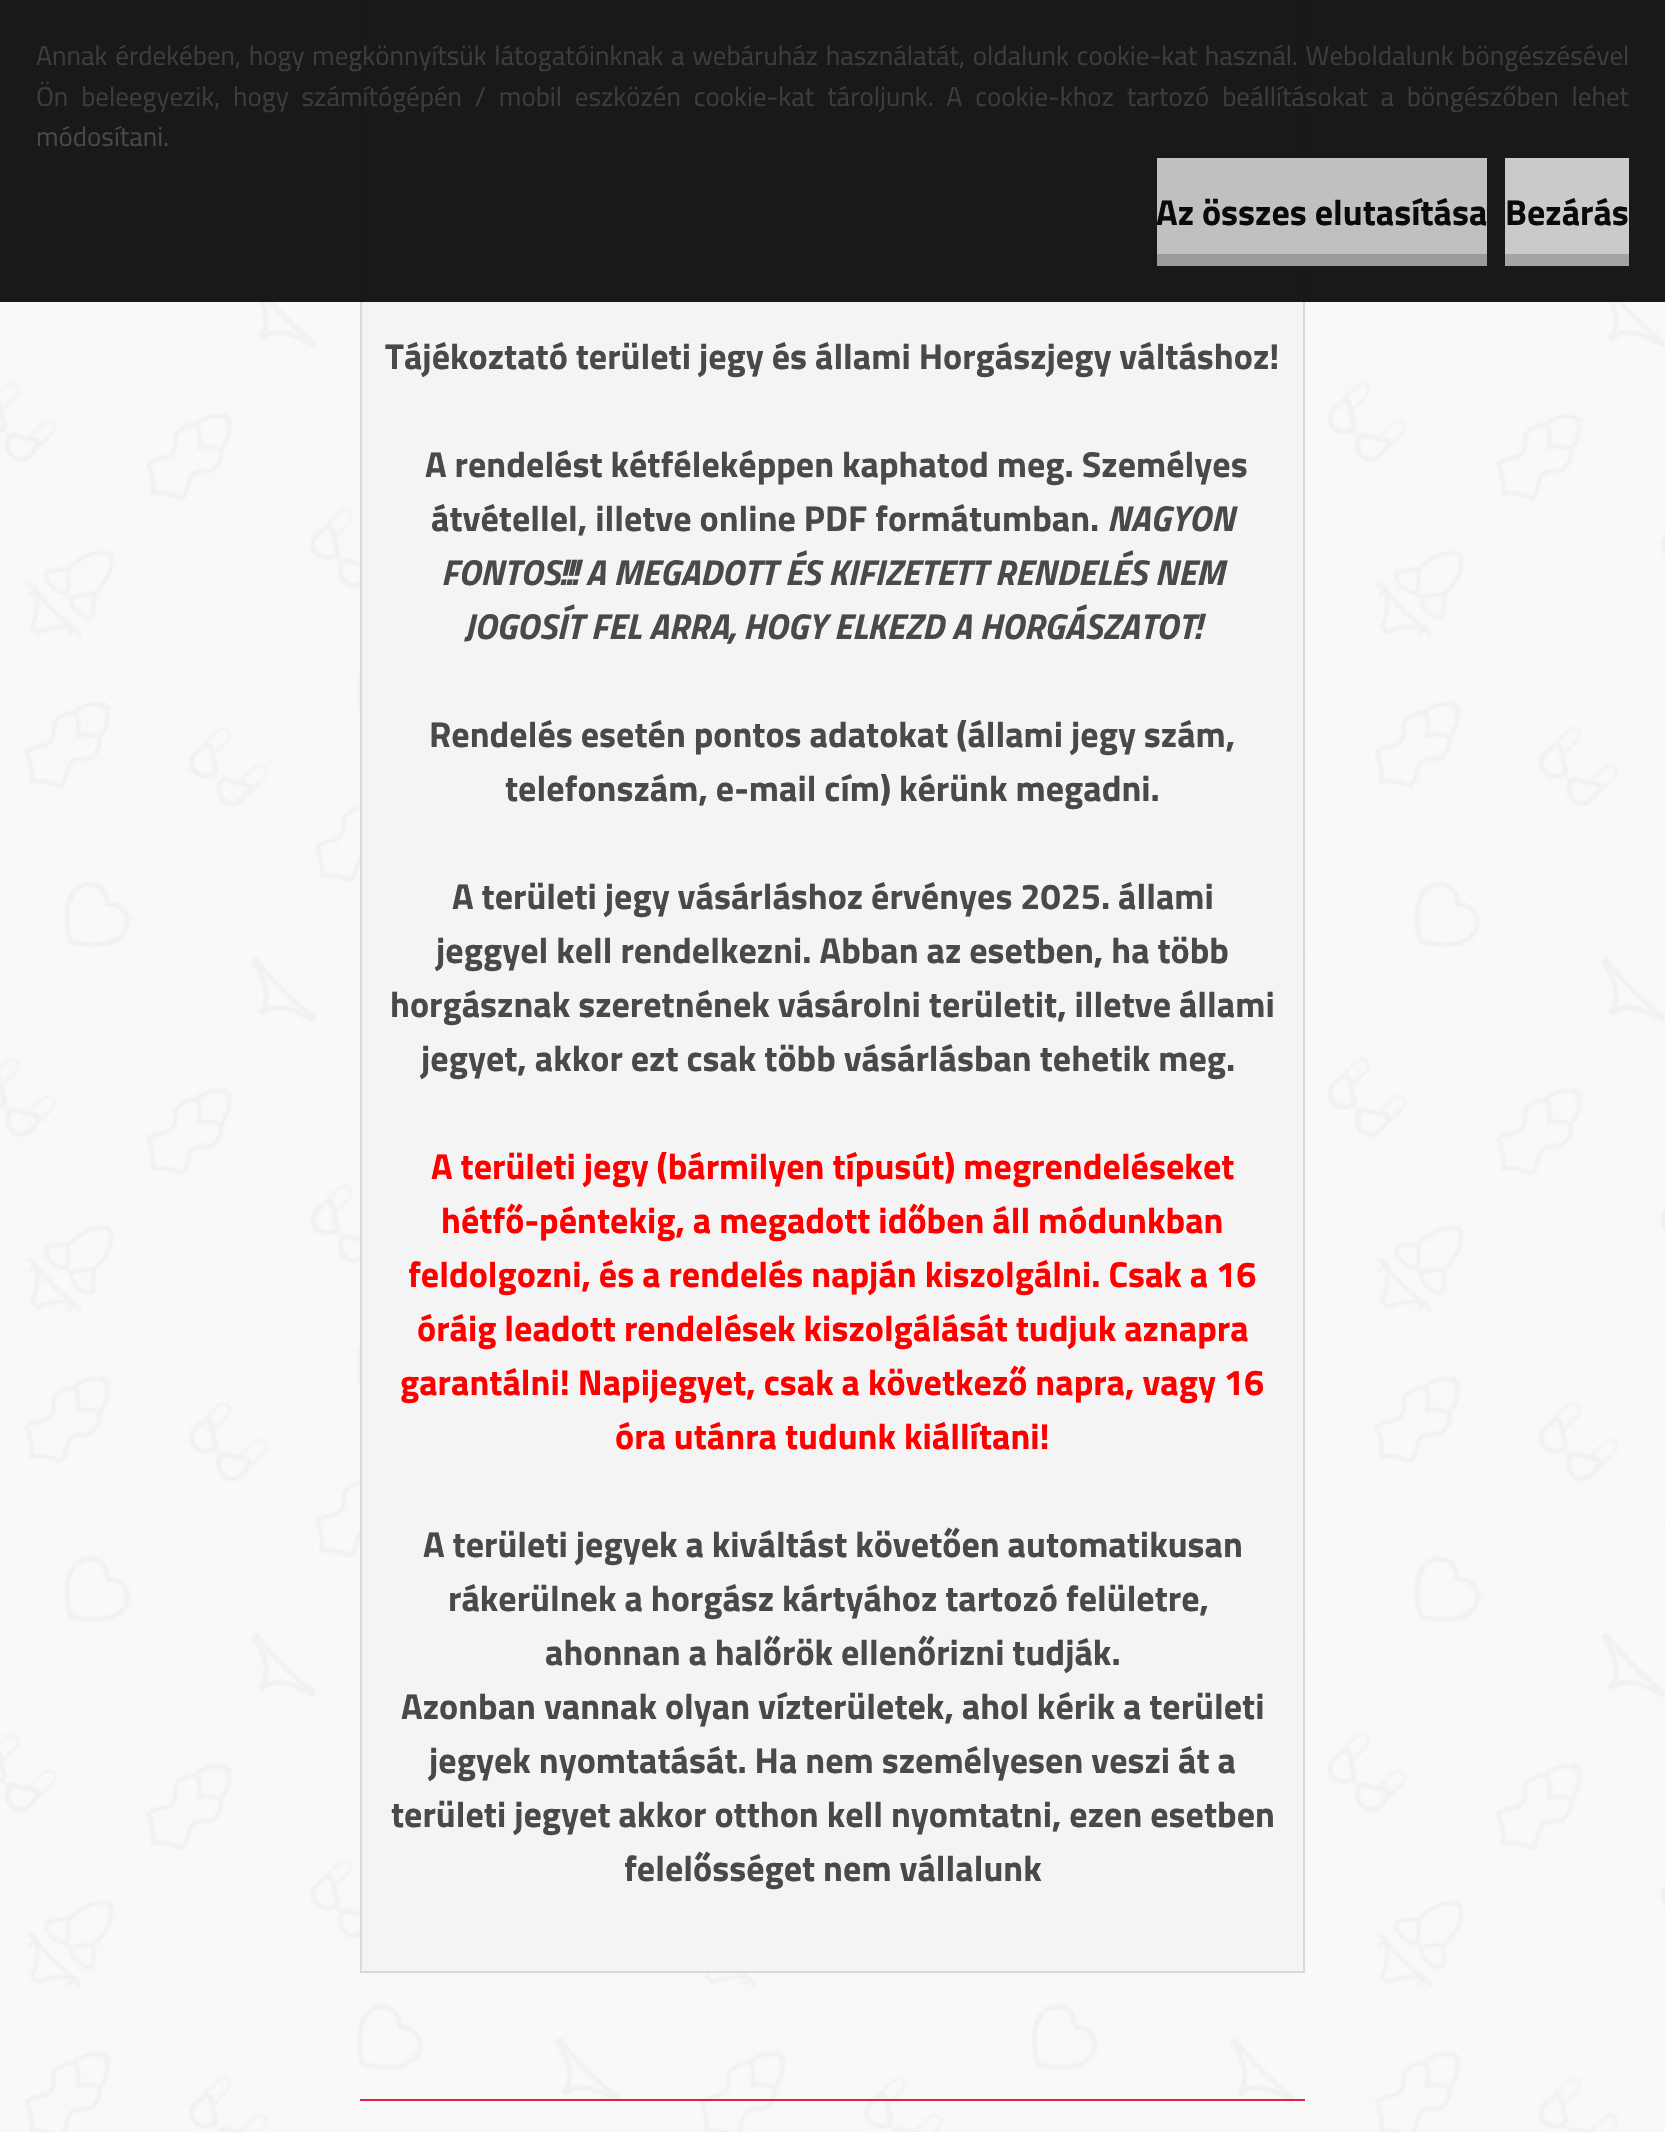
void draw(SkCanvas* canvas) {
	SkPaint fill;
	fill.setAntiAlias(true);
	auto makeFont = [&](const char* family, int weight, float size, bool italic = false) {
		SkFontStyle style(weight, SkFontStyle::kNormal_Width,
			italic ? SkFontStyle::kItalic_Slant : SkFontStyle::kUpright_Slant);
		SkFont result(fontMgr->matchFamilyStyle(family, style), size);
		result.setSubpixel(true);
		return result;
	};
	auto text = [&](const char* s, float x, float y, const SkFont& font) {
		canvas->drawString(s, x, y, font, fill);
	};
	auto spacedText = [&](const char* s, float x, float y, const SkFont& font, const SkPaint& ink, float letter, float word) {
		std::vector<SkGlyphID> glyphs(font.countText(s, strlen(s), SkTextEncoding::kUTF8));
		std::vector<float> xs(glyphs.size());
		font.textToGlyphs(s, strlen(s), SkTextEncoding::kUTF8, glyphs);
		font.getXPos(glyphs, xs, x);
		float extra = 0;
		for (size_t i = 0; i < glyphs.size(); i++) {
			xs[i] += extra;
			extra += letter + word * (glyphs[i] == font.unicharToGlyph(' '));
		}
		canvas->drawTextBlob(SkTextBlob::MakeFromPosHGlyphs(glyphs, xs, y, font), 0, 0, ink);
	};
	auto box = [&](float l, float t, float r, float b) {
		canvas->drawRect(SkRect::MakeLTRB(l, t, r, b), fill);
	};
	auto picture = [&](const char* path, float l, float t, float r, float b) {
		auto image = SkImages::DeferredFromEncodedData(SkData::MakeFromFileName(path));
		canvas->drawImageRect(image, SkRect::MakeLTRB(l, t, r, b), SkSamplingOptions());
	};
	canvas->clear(0xFFFFFFFF);
	picture("image0.png", 0, 0, 1665, 2132);
	fill.setColor(0xFFF4F4F4);
	canvas->drawRect(SkRect::MakeLTRB(361, -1, 1304, 1972), fill);
	fill.setStyle(SkPaint::kStroke_Style);
	fill.setStrokeWidth(2);
	fill.setColor(0xFFD9D9D9);
	canvas->drawRect(SkRect::MakeLTRB(361, -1, 1304, 1972), fill);
	fill.setStyle(SkPaint::kFill_Style);
	fill.setColor(0xF20D0D0D);
	box(0, 0, 1665, 302);
	fill.setColor(0xF2C8C8C8);
	box(1157, 158, 1487, 254);
	fill.setColor(0xFF9B9B9B);
	box(1157, 254, 1487, 266);
	fill.setColor(0xFFCACACA);
	box(1505, 158, 1629, 254);
	fill.setColor(0xFFA4A4A4);
	box(1505, 254, 1629, 266);
	fill.setColor(0xFFE02140);
	box(360, 2099, 1305, 2101);
	auto font1 = makeFont("Titillium Web", 400, 27);
	fill.setColor(0xFF3D3D3D);
	spacedText("Annak érdekében, hogy megkönnyítsük látogatóinknak a webáruház használatát, oldalunk cookie-kat használ. Weboldalunk böngészésével", 36, 65, font1, fill, 0, 1.75f);
	spacedText("Ön beleegyezik, hogy számítógépén / mobil eszközén cookie-kat tároljunk. A cookie-khoz tartozó beállításokat a böngészőben lehet", 36, 106, font1, fill, 0, 6.9f);
	fill.setColor(0xFF494949);
	text("módosítani.", 36, 146, font1);
	auto font2 = makeFont("Titillium Web", 700, 36);
	fill.setColor(0xFF0A0A0A);
	text("Az összes elutasítása", 1156, 225, font2);
	text("Bezárás", 1505, 225, font2);
	fill.setColor(0xFF494949);
	text("Tájékoztató területi jegy és állami Horgászjegy váltáshoz!", 385, 369, font2);
	text("A rendelést kétféleképpen kaphatod meg. Személyes", 425, 477, font2);
	text("átvétellel, illetve online PDF formátumban.", 431, 531, font2);
	auto font3 = makeFont("Titillium Web", 700, 36, true);
	text("NAGYON", 1107, 531, font3);
	text("FONTOS!!! A MEGADOTT ÉS KIFIZETETT RENDELÉS NEM", 441, 585, font3);
	text("JOGOSÍT FEL ARRA, HOGY ELKEZD A HORGÁSZATOT!", 464, 639, font3);
	text("Rendelés esetén pontos adatokat (állami jegy szám,", 429, 747, font2);
	text("telefonszám, e-mail cím) kérünk megadni.", 505, 801, font2);
	text("A területi jegy vásárláshoz érvényes 2025. állami", 452, 909, font2);
	text("jeggyel kell rendelkezni. Abban az esetben, ha több", 436, 963, font2);
	text("horgásznak szeretnének vásárolni területit, illetve állami", 390, 1017, font2);
	text("jegyet, akkor ezt csak több vásárlásban tehetik meg.", 421, 1071, font2);
	fill.setColor(0xFFFF0000);
	text("A területi jegy (bármilyen típusút) megrendeléseket", 431, 1179, font2);
	text("hétfő-péntekig, a megadott időben áll módunkban", 441, 1233, font2);
	text("feldolgozni, és a rendelés napján kiszolgálni. Csak a 16", 408, 1287, font2);
	text("óráig leadott rendelések kiszolgálását tudjuk aznapra", 417, 1341, font2);
	text("garantálni! Napijegyet, csak a következő napra, vagy 16", 400, 1395, font2);
	text("óra utánra tudunk kiállítani!", 615, 1449, font2);
	fill.setColor(0xFF494949);
	text("A területi jegyek a kiváltást követően automatikusan", 423, 1557, font2);
	text("rákerülnek a horgász kártyához tartozó felületre,", 448, 1611, font2);
	text("ahonnan a halőrök ellenőrizni tudják.", 545, 1665, font2);
	text("Azonban vannak olyan vízterületek, ahol kérik a területi", 401, 1719, font2);
	text("jegyek nyomtatását. Ha nem személyesen veszi át a", 429, 1773, font2);
	text("területi jegyet akkor otthon kell nyomtatni, ezen esetben", 391, 1827, font2);
	text("felelősséget nem vállalunk", 624, 1881, font2);
}
